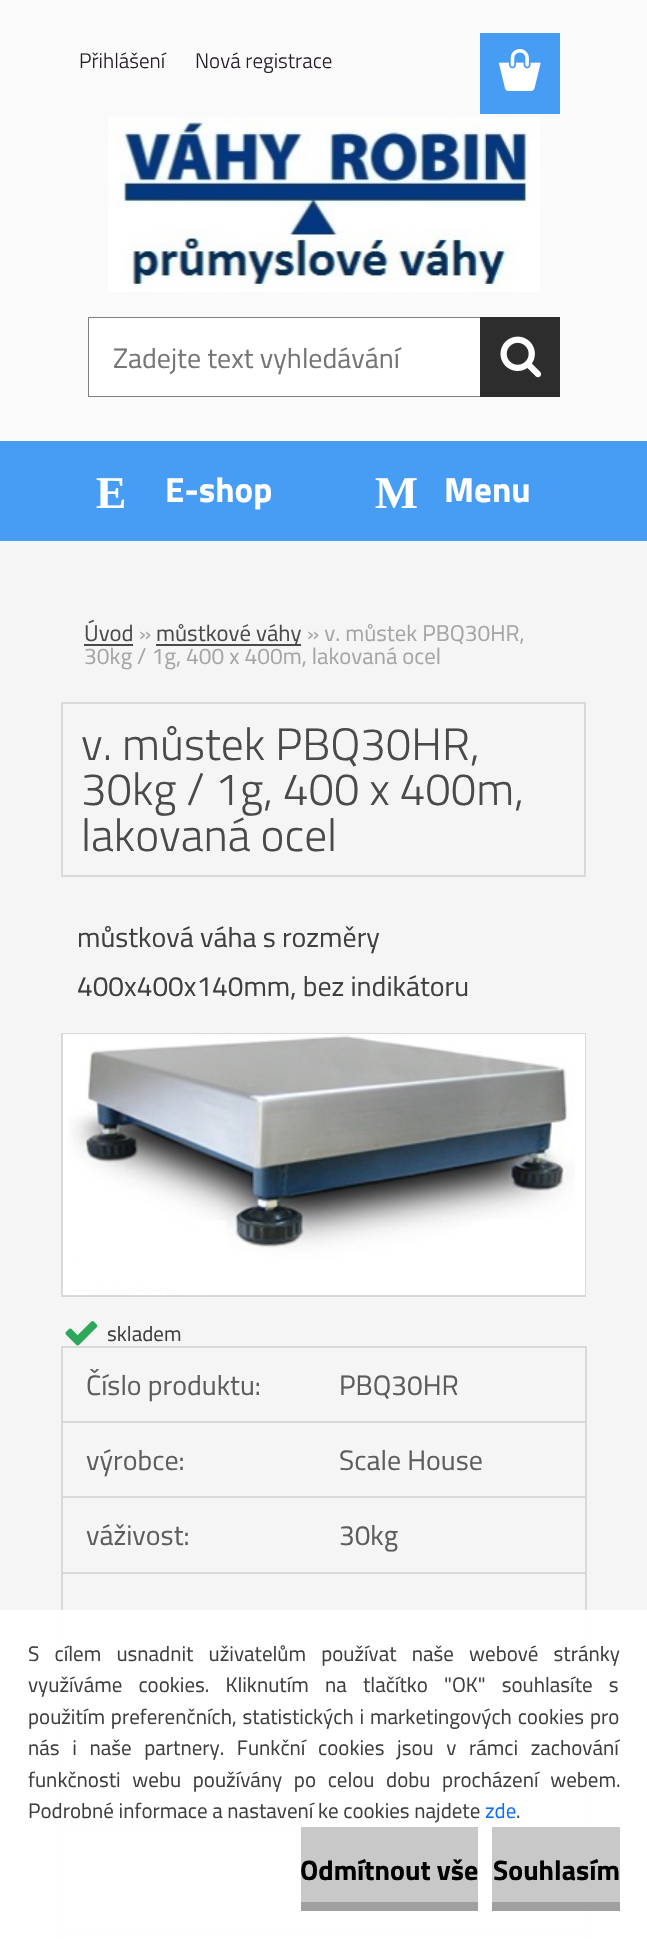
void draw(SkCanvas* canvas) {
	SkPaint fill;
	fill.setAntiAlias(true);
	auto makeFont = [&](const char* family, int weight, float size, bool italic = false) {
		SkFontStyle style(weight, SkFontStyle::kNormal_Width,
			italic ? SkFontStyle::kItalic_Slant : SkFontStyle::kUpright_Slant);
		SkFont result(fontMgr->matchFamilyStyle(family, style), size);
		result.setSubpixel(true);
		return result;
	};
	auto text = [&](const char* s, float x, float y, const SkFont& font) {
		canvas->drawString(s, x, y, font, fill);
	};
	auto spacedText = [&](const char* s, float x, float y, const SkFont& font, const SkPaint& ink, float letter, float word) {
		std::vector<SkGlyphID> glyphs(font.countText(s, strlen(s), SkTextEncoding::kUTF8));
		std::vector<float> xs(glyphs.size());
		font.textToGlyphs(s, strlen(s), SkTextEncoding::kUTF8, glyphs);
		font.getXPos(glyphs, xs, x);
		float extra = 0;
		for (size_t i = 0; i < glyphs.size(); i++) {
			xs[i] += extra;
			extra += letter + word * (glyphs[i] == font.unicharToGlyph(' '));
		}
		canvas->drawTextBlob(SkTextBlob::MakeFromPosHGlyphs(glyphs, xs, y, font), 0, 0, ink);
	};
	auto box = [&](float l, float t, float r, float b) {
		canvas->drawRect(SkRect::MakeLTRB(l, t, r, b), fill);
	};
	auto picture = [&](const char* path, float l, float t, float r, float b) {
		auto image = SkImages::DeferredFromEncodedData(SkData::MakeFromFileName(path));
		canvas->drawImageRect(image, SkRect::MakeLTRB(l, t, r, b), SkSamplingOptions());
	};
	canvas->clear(0xFFFAFAFA);
	fill.setColor(0xFFF5F5F5);
	box(0, 541, 647, 1939);
	fill.setColor(0xFF479CF3);
	box(480, 33, 560, 114);
	picture("image0.png", 499, 49, 541, 91);
	fill.setColor(0xFF4A4A4A);
	box(84, 644, 133, 646);
	box(156, 644, 301, 646);
	fill.setStyle(SkPaint::kStroke_Style);
	fill.setStrokeWidth(2);
	fill.setColor(0xFFD9D9D9);
	canvas->drawRect(SkRect::MakeLTRB(62, 703, 585, 876), fill);
	canvas->drawRect(SkRect::MakeLTRB(62, 1034, 585, 1296), fill);
	fill.setStyle(SkPaint::kFill_Style);
	fill.setColor(0xFFFFFFFF);
	box(63, 1034, 585, 1295);
	picture("image1.png", 68, 1035, 575, 1295);
	picture("image2.png", 65, 1321, 98, 1346);
	box(63, 1827, 585, 1932);
	fill.setColor(0xFFD9D9D9);
	box(61, 1346, 586, 1348);
	box(585, 1346, 587, 1939);
	box(61, 1346, 63, 1939);
	box(61, 1421, 586, 1423);
	box(61, 1496, 586, 1498);
	box(61, 1572, 586, 1574);
	box(61, 1647, 586, 1649);
	box(61, 1722, 586, 1724);
	box(61, 1825, 586, 1827);
	box(61, 1932, 586, 1934);
	fill.setColor(0xFF479CF3);
	canvas->drawPath(SkPathBuilder().moveTo(0, 441).lineTo(0, 541).lineTo(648, 541).lineTo(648, 100).lineTo(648, 441).close().detach(), fill);
	picture("image3.png", 108, 117, 540, 292);
	fill.setColor(0xFFFFFFFF);
	box(88, 317, 480, 397);
	fill.setColor(0xFF808080);
	canvas->drawPath(SkPathBuilder().moveTo(88, 317).lineTo(480, 317).lineTo(480, 318).lineTo(89, 318).close().detach(), fill);
	canvas->drawPath(SkPathBuilder().moveTo(480, 397).lineTo(88, 397).lineTo(89, 396).lineTo(480, 396).close().detach(), fill);
	fill.setColor(0x80000000);
	canvas->drawPath(SkPathBuilder().moveTo(88, 397).lineTo(88, 317).lineTo(89, 318).lineTo(89, 396).close().detach(), fill);
	fill.setColor(0xFF2D2D2D);
	box(480, 317, 560, 397);
	picture("image4.png", 500, 336, 542, 378);
	fill.setColor(0xF2FFFFFF);
	box(0, 1610, 647, 1939);
	fill.setColor(0xFFC8C8C8);
	box(301, 1827, 478, 1902);
	fill.setColor(0xFFA0A0A0);
	box(301, 1902, 478, 1911);
	fill.setColor(0xFFC8C8C8);
	box(492, 1827, 620, 1902);
	fill.setColor(0xFFA0A0A0);
	box(492, 1902, 620, 1911);
	auto font1 = makeFont("Titillium Web", 300, 21);
	fill.setColor(0xFF231C24);
	text("Přihlášení", 79, 68, font1);
	text("Nová registrace", 195, 68, font1);
	auto font2 = makeFont("Liberation Serif", 700, 45.5f);
	fill.setColor(0xFFFFFFFF);
	text("E", 96, 508, font2);
	auto font3 = makeFont("Titillium Web", 700, 35);
	text("E-shop", 165, 502, font3);
	text("M", 375, 508, font2);
	text("Menu", 444, 502, font3);
	auto font4 = makeFont("Titillium Web", 400, 22.75f);
	fill.setColor(0xFF4A4A4A);
	text("Úvod", 84, 641, font4);
	fill.setColor(0xFFA5A5A5);
	text("»", 139, 641, font4);
	fill.setColor(0xFF4A4A4A);
	text("můstkové váhy", 156, 641, font4);
	fill.setColor(0xFFA5A5A5);
	text("» v. můstek PBQ30HR,", 307, 641, font4);
	text("30kg / 1g, 400 x 400m, lakovaná ocel", 84, 664, font4);
	auto font5 = makeFont("Titillium Web", 300, 45.5f);
	fill.setColor(0xFF4A4A4A);
	text("v. můstek PBQ30HR,", 81, 760, font5);
	text("30kg / 1g, 400 x 400m,", 81, 805, font5);
	text("lakovaná ocel", 81, 851, font5);
	auto font6 = makeFont("Titillium Web", 400, 28);
	fill.setColor(0xFF3F3F3F);
	text("můstková váha s rozměry", 77, 947, font6);
	text("400x400x140mm, bez indikátoru", 77, 996, font6);
	auto font7 = makeFont("Titillium Web", 400, 21);
	text("skladem", 107, 1341, font7);
	fill.setColor(0xFF5D5D5D);
	text("Číslo produktu:", 86, 1395, font6);
	text("PBQ30HR", 339, 1395, font6);
	text("výrobce:", 86, 1470, font6);
	text("Scale House", 339, 1470, font6);
	text("váživost:", 86, 1545, font6);
	text("30kg", 339, 1545, font6);
	fill.setColor(0xFF757575);
	text("Zadejte text vyhledávání", 113, 368, font6);
	fill.setColor(0xFF3F3F3F);
	spacedText("S cílem usnadnit uživatelům používat naše webové stránky", 28, 1661, font7, fill, 0, 10.5f);
	spacedText("využíváme cookies. Kliknutím na tlačítko \"OK\" souhlasíte s", 28, 1692, font7, fill, 0, 11.5f);
	spacedText("použitím preferenčních, statistických i marketingových cookies pro", 28, 1724, font7, fill, 0, 1.25f);
	spacedText("nás i naše partnery. Funkční cookies jsou v rámci zachování", 28, 1755, font7, fill, 0, 8);
	spacedText("funkčnosti webu používány po celou dobu procházení webem.", 28, 1787, font7, fill, 0, 7);
	text("Podrobné informace a nastavení ke cookies najdete", 28, 1818, font7);
	fill.setColor(0xFF0D6EFD);
	text("zde", 485, 1818, font7);
	fill.setColor(0xFF3F3F3F);
	text(".", 516, 1818, font7);
	auto font8 = makeFont("Titillium Web", 700, 28);
	fill.setColor(0xFF000000);
	text("Odmítnout vše", 300, 1880, font8);
	text("Souhlasím", 493, 1880, font8);
}
